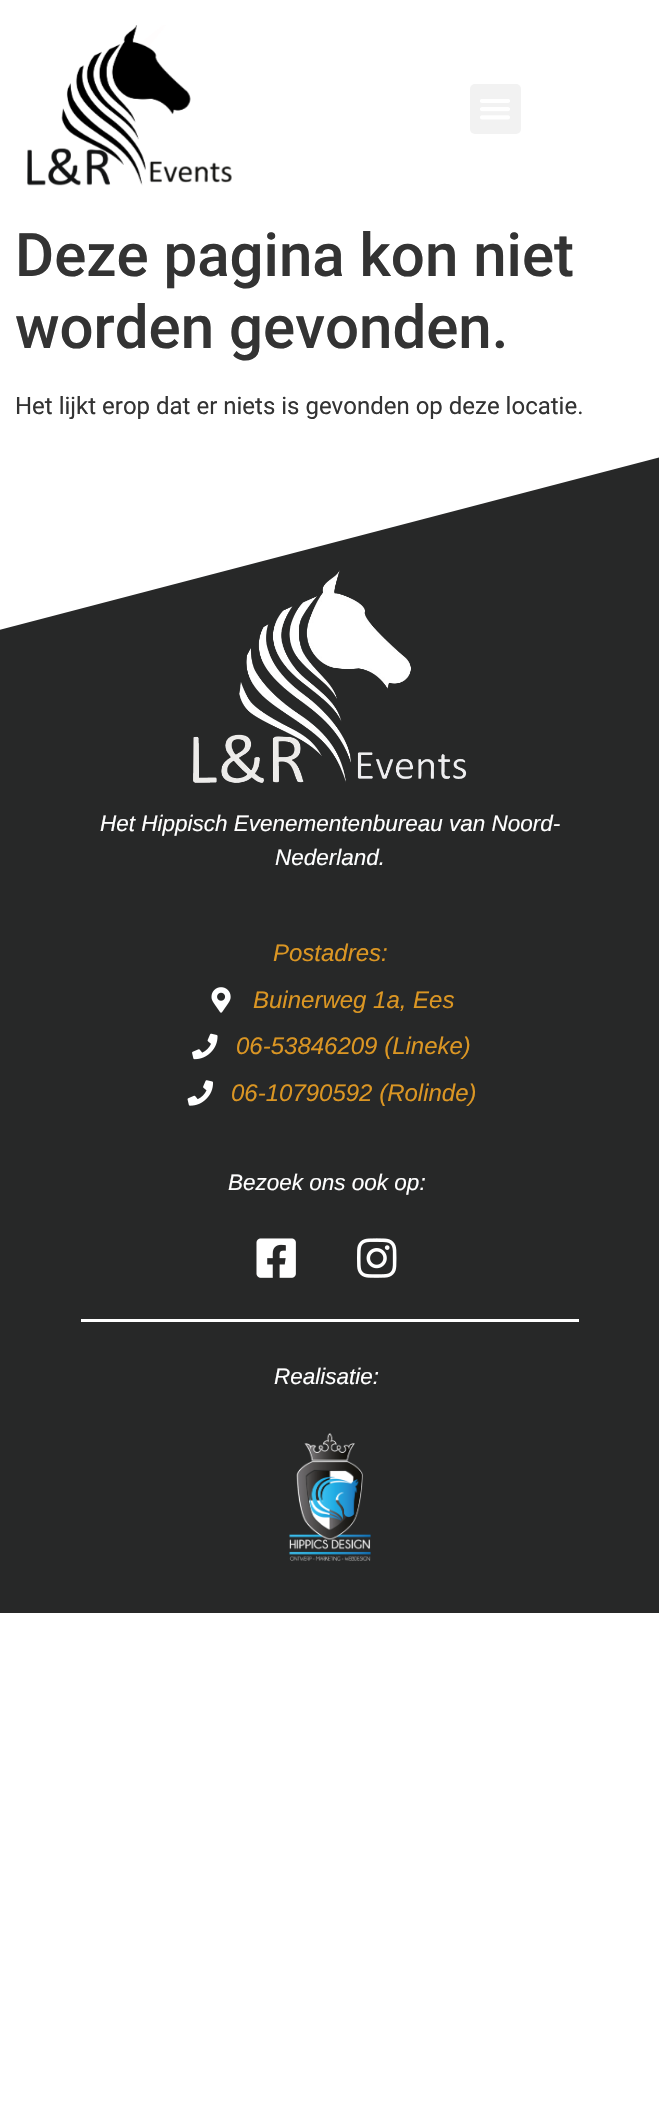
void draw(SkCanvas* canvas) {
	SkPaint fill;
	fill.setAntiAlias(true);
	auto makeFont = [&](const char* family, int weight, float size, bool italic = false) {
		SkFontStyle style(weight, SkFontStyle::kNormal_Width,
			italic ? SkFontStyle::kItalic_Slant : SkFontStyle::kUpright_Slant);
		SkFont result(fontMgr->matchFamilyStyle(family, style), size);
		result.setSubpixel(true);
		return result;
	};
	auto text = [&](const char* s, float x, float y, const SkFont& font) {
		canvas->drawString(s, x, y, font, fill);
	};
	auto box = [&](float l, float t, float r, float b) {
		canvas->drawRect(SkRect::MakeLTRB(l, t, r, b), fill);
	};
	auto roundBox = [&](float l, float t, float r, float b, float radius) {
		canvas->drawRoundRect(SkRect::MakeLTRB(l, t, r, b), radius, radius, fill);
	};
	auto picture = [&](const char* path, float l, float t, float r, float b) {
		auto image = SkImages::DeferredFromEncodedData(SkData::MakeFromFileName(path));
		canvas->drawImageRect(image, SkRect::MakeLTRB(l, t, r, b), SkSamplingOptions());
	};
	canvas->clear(0xFFFFFFFF);
	picture("image0.png", 27, 25, 232, 186);
	fill.setColor(0xFFF2F2F2);
	roundBox(470, 84, 521, 134, 5);
	picture("image1.png", 480, 99, 510, 120);
	fill.setColor(0xFF272828);
	box(0, 457, 659, 1613);
	fill.setColor(0xFFFFFFFF);
	canvas->drawPath(SkPathBuilder().moveTo(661, 457).lineTo(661, 446).lineTo(-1, 446).lineTo(-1, 630).close().detach(), fill);
	picture("image2.png", 193, 570, 467, 783);
	picture("image3.png", 211, 987, 231, 1013);
	picture("image4.png", 192, 1033, 218, 1060);
	picture("image5.png", 187, 1080, 213, 1106);
	picture("image6.png", 256, 1238, 296, 1278);
	picture("image7.png", 357, 1238, 397, 1278);
	box(81, 1319, 579, 1322);
	picture("image8.png", 289, 1433, 371, 1561);
	auto font1 = makeFont("Roboto", 500, 60);
	fill.setColor(0xFF333333);
	text("Deze pagina kon niet", 15, 276, font1);
	text("worden gevonden.", 15, 348, font1);
	auto font2 = makeFont("Roboto", 400, 24);
	text("Het lijkt erop dat er niets is gevonden op deze locatie.", 15, 414, font2);
	auto font3 = makeFont("Liberation Sans", 400, 22.5f, true);
	fill.setColor(0xFFFFFFFF);
	text("Het Hippisch Evenementenbureau van Noord-", 100, 831, font3);
	text("Nederland.", 275, 865, font3);
	auto font4 = makeFont("Liberation Sans", 400, 24, true);
	fill.setColor(0xFFDB9623);
	text("Postadres:", 273, 961, font4);
	text("Buinerweg 1a, Ees", 253, 1008, font4);
	text("06-53846209 (Lineke)", 236, 1054, font4);
	text("06-10790592 (Rolinde)", 231, 1101, font4);
	fill.setColor(0xFFFFFFFF);
	text("Bezoek ons ook op:", 228, 1190, font3);
	text("Realisatie:", 274, 1384, font3);
}
